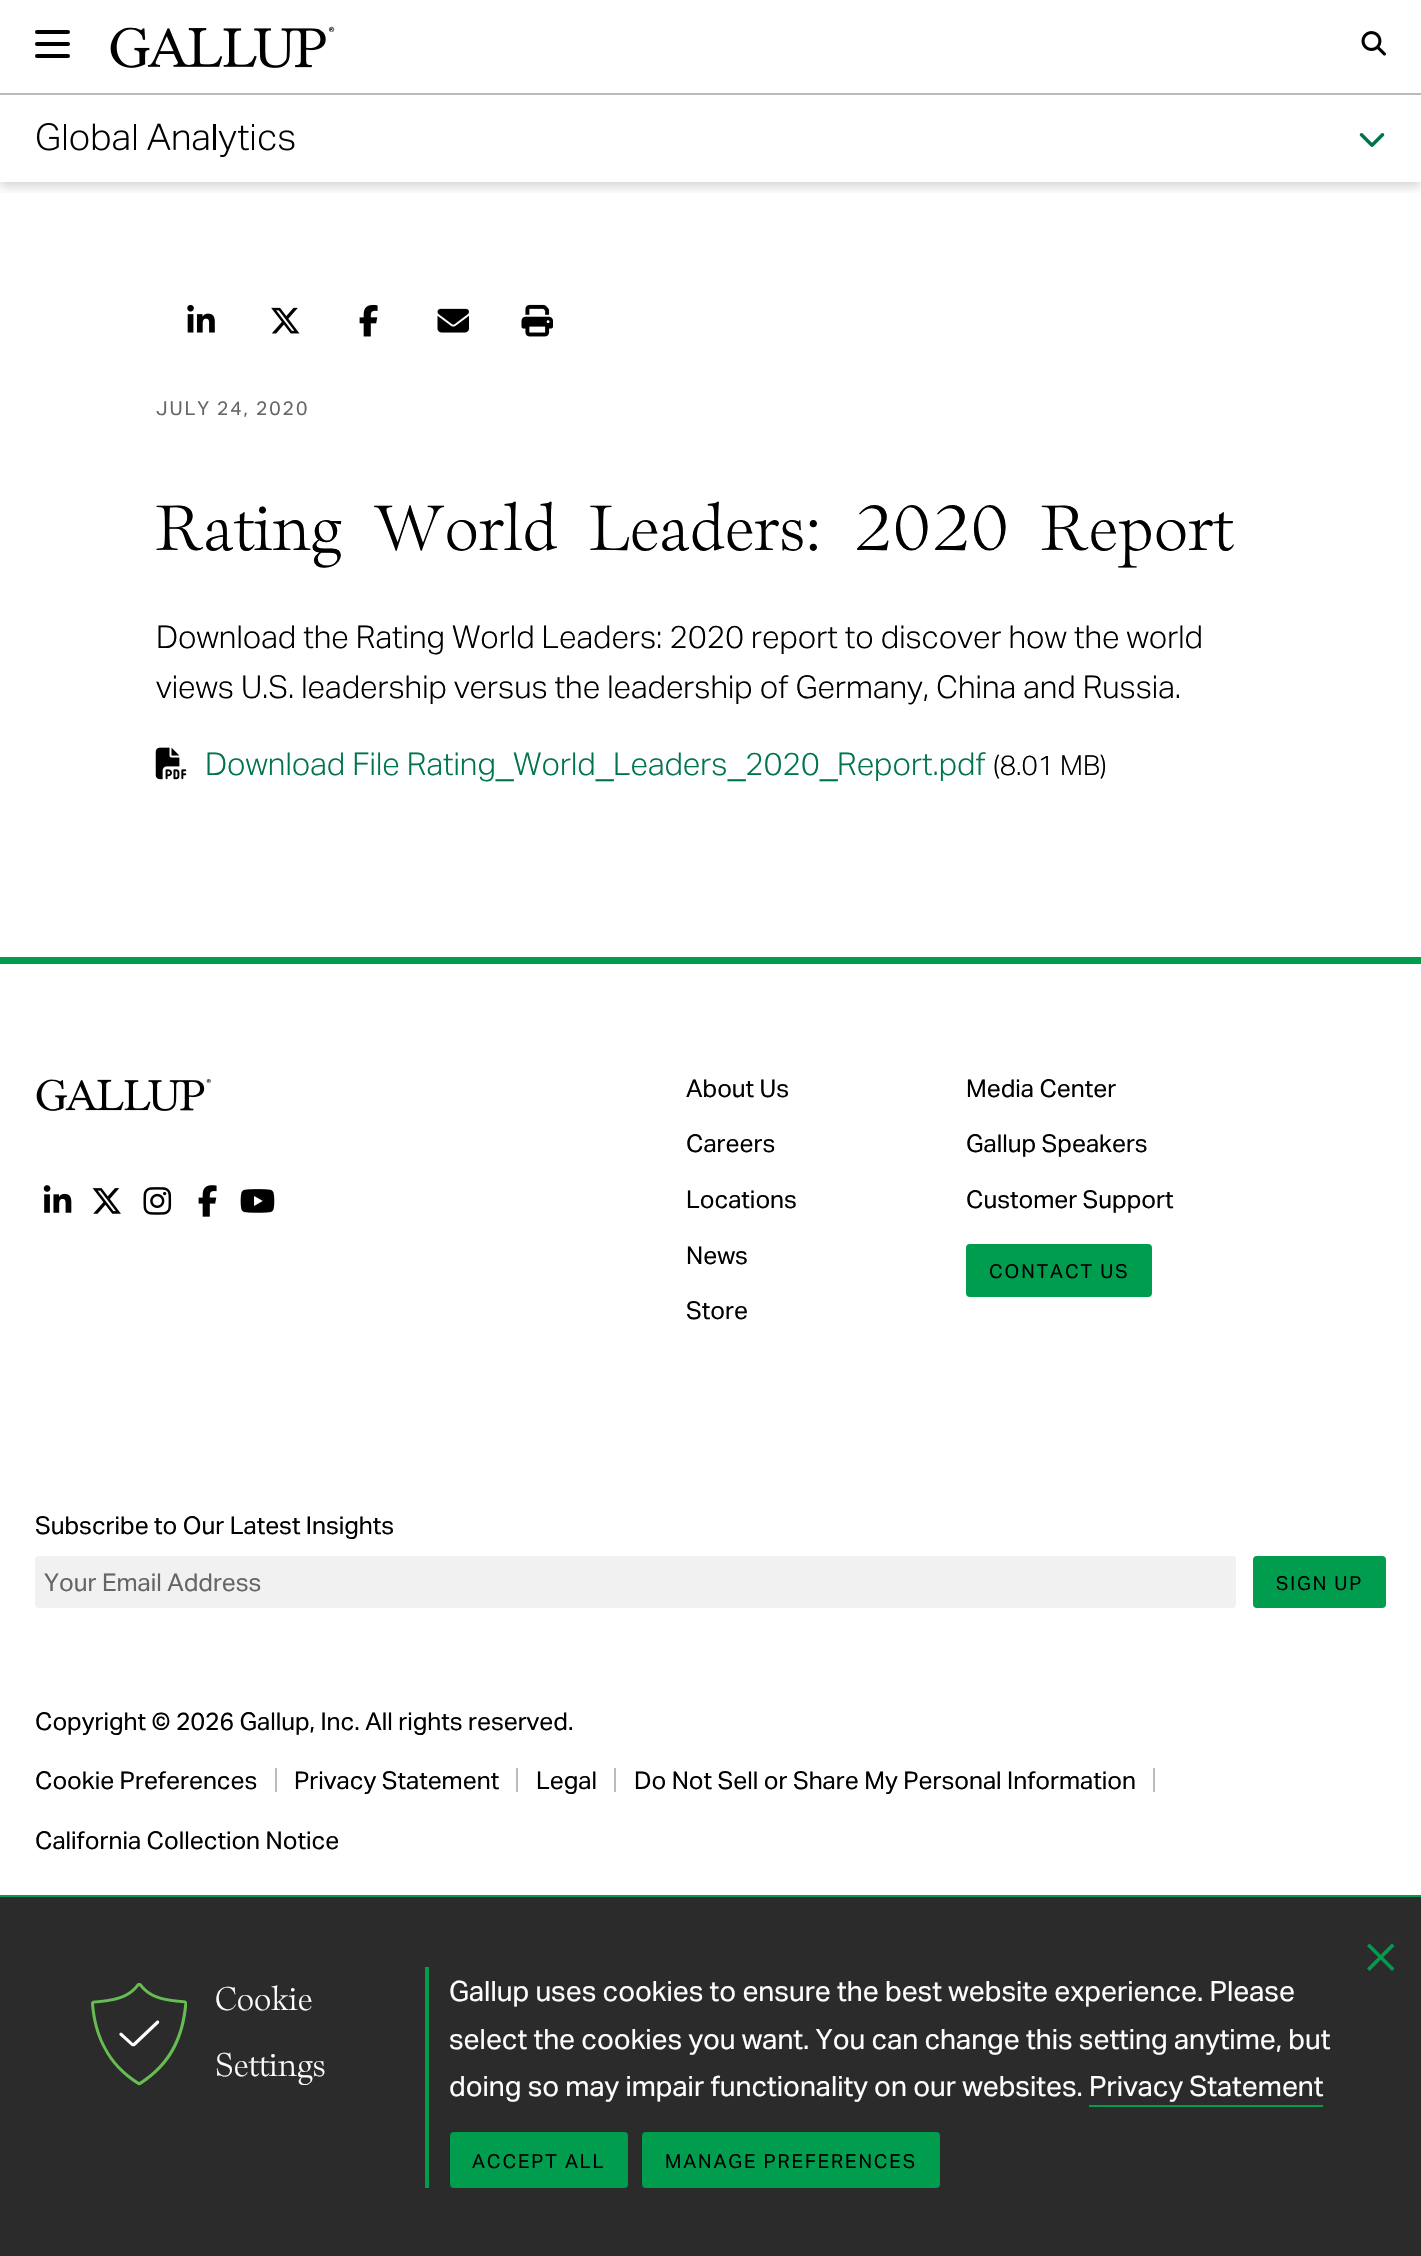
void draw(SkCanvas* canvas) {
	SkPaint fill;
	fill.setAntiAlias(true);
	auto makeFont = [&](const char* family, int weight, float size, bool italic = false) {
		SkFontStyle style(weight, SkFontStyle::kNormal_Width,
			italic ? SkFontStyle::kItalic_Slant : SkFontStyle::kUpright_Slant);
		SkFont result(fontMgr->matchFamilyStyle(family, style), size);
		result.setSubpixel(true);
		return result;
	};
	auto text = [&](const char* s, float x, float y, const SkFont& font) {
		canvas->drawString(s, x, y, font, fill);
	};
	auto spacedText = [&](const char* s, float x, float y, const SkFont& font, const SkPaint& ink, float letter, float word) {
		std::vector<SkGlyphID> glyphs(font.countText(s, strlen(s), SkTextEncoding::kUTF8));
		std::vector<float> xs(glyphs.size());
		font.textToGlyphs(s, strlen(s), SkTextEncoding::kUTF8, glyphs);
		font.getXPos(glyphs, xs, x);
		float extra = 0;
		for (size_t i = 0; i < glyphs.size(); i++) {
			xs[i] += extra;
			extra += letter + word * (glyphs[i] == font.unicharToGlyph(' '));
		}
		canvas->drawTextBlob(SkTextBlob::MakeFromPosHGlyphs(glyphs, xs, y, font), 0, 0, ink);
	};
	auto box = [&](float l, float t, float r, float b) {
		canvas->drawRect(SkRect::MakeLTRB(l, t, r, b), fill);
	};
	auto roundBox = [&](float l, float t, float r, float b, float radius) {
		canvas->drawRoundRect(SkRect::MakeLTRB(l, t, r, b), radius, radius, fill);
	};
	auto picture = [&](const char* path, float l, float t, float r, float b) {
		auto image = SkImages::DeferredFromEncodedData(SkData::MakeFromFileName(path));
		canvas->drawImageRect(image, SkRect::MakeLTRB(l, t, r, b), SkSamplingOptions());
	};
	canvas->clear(0xFFFFFFFF);
	canvas->save();
	canvas->clipRect(SkRect::MakeLTRB(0, 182, 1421, 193));
	fill.setColor(0x29000000);
	fill.setMaskFilter(SkMaskFilter::MakeBlur(kNormal_SkBlurStyle, 5));
	canvas->drawRect(SkRect::MakeLTRB(0, 98, 1421, 187), fill);
	fill.setMaskFilter(nullptr);
	canvas->restore();
	fill.setColor(0xFFFFFFFF);
	box(1, 90, 1420, 93);
	fill.setColor(0xFF000000);
	roundBox(35, 30, 70, 34, 2);
	roundBox(35, 42, 70, 46, 2);
	roundBox(35, 54, 70, 58, 2);
	picture("image0.png", 110, 26, 335, 68);
	picture("image1.png", 1361, 31, 1386, 56);
	fill.setColor(0xFFBBBBBB);
	box(0, 93, 1421, 95);
	picture("image2.png", 37, 123, 295, 157);
	picture("image3.png", 1359, 133, 1385, 147);
	picture("image4.png", 187, 304, 215, 333);
	picture("image5.png", 271, 307, 300, 334);
	picture("image6.png", 359, 304, 378, 337);
	picture("image7.png", 437, 308, 469, 333);
	picture("image8.png", 521, 304, 553, 337);
	picture("image9.png", 155, 747, 187, 780);
	fill.setColor(0xFF009D4E);
	box(0, 957, 1421, 964);
	picture("image10.png", 36, 1078, 211, 1111);
	picture("image11.png", 43, 1185, 72, 1213);
	picture("image12.png", 92, 1188, 121, 1214);
	picture("image13.png", 143, 1187, 172, 1215);
	picture("image14.png", 198, 1185, 217, 1217);
	picture("image15.png", 240, 1189, 275, 1213);
	canvas->drawRoundRect(SkRect::MakeLTRB(967, 1245, 1151, 1296), 3, 3, fill);
	fill.setStyle(SkPaint::kStroke_Style);
	fill.setStrokeWidth(2);
	canvas->drawRoundRect(SkRect::MakeLTRB(967, 1245, 1151, 1296), 3, 3, fill);
	fill.setStyle(SkPaint::kFill_Style);
	fill.setColor(0xFFF1F1F1);
	roundBox(35, 1556, 1236, 1608, 4);
	fill.setColor(0xFF009D4E);
	canvas->drawRoundRect(SkRect::MakeLTRB(1254, 1557, 1385, 1607), 3, 3, fill);
	fill.setStyle(SkPaint::kStroke_Style);
	canvas->drawRoundRect(SkRect::MakeLTRB(1254, 1557, 1385, 1607), 3, 3, fill);
	fill.setStyle(SkPaint::kFill_Style);
	fill.setColor(0xFFBBBBBB);
	box(275, 1768, 277, 1792);
	box(516, 1768, 518, 1792);
	box(614, 1768, 616, 1792);
	box(1153, 1768, 1155, 1792);
	fill.setColor(0xFF2B2B2B);
	box(0, 1897, 1421, 2256);
	fill.setColor(0xFF009D4E);
	box(0, 1895, 1421, 1897);
	canvas->drawPath(SkPathBuilder().moveTo(1392, 1943.5f).lineTo(1394.5f, 1946).lineTo(1369.5f, 1971).lineTo(1367, 1968.5f).close().detach(), fill);
	canvas->drawPath(SkPathBuilder().moveTo(1367, 1946).lineTo(1369.5f, 1943.5f).lineTo(1394.5f, 1968.5f).lineTo(1392, 1971).close().detach(), fill);
	picture("image16.png", 91, 1983, 187, 2086);
	box(425, 1967, 429, 2188);
	box(1089, 2105, 1323, 2107);
	canvas->drawRoundRect(SkRect::MakeLTRB(451, 2133, 627, 2187), 3, 3, fill);
	fill.setStyle(SkPaint::kStroke_Style);
	canvas->drawRoundRect(SkRect::MakeLTRB(451, 2133, 627, 2187), 3, 3, fill);
	fill.setStyle(SkPaint::kFill_Style);
	canvas->drawRoundRect(SkRect::MakeLTRB(643, 2133, 939, 2187), 3, 3, fill);
	fill.setStyle(SkPaint::kStroke_Style);
	canvas->drawRoundRect(SkRect::MakeLTRB(643, 2133, 939, 2187), 3, 3, fill);
	auto font1 = makeFont("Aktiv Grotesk", 400, 19.25f);
	fill.setStyle(SkPaint::kFill_Style);
	fill.setColor(0xFF666666);
	spacedText("JULY 24, 2020", 156, 415, font1, fill, 1.9f, 0);
	auto font2 = makeFont("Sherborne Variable", 400, 68.25f);
	fill.setColor(0xFF000000);
	spacedText("Rating World Leaders: 2020 Report", 156, 550, font2, fill, 0, 11.5f);
	auto font3 = makeFont("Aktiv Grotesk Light", 300, 31.5f);
	text("Download the Rating World Leaders: 2020 report to discover how the world", 156, 648, font3);
	text("views U.S. leadership versus the leadership of Germany, China and Russia.", 156, 698, font3);
	fill.setColor(0xFF00754A);
	text("Download File Rating", 205, 775, font3);
	text("World", 513, 775, font3);
	text("Leaders", 613, 775, font3);
	text("2020", 745, 775, font3);
	text("Report.pdf", 837, 775, font3);
	auto font4 = makeFont("Aktiv Grotesk Light", 300, 27.5f);
	fill.setColor(0xFF000000);
	text("(8.01 MB)", 993, 775, font4);
	auto font5 = makeFont("Liberation Sans", 400, 31.5f);
	fill.setColor(0xFF00754A);
	text("_", 496, 775, font5);
	text("_", 596, 775, font5);
	text("_", 728, 775, font5);
	text("_", 820, 775, font5);
	auto font6 = makeFont("Aktiv Grotesk", 400, 24.5f);
	fill.setColor(0xFF000000);
	text("About Us", 686, 1097, font6);
	text("Careers", 686, 1152, font6);
	text("Locations", 686, 1208, font6);
	text("News", 686, 1264, font6);
	text("Store", 686, 1319, font6);
	text("Media Center", 966, 1097, font6);
	text("Gallup Speakers", 966, 1152, font6);
	text("Customer Support", 966, 1208, font6);
	spacedText("CONTACT US", 989, 1278, font1, fill, 1.9f, 0);
	text("Subscribe to Our Latest Insights", 35, 1534, font6);
	fill.setColor(0xFF666666);
	text("Your Email Address", 44, 1591, font6);
	fill.setColor(0xFF000000);
	spacedText("SIGN UP", 1276, 1590, font1, fill, 1.9f, 0);
	text("Copyright © 2026 Gallup, Inc. All rights reserved.", 35, 1730, font6);
	text("Cookie Preferences", 35, 1789, font6);
	text("Privacy Statement", 294, 1789, font6);
	text("Legal", 536, 1789, font6);
	text("Do Not Sell or Share My Personal Information", 634, 1789, font6);
	text("California Collection Notice", 35, 1849, font6);
	auto font7 = makeFont("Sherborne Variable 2", 400, 35);
	fill.setColor(0xFFFFFFFF);
	text("Cookie", 215, 2010, font7);
	text("Settings", 215, 2076, font7);
	auto font8 = makeFont("Aktiv Grotesk", 400, 28);
	text("Gallup uses cookies to ensure the best website experience. Please", 449, 2001, font8);
	text("select the cookies you want. You can change this setting anytime, but", 449, 2049, font8);
	text("doing so may impair functionality on our websites. Privacy Statement", 449, 2096, font8);
	fill.setColor(0xFF000000);
	spacedText("ACCEPT ALL", 472, 2168, font1, fill, 1.9f, 0);
	spacedText("MANAGE PREFERENCES", 665, 2168, font1, fill, 1.9f, 0);
}
